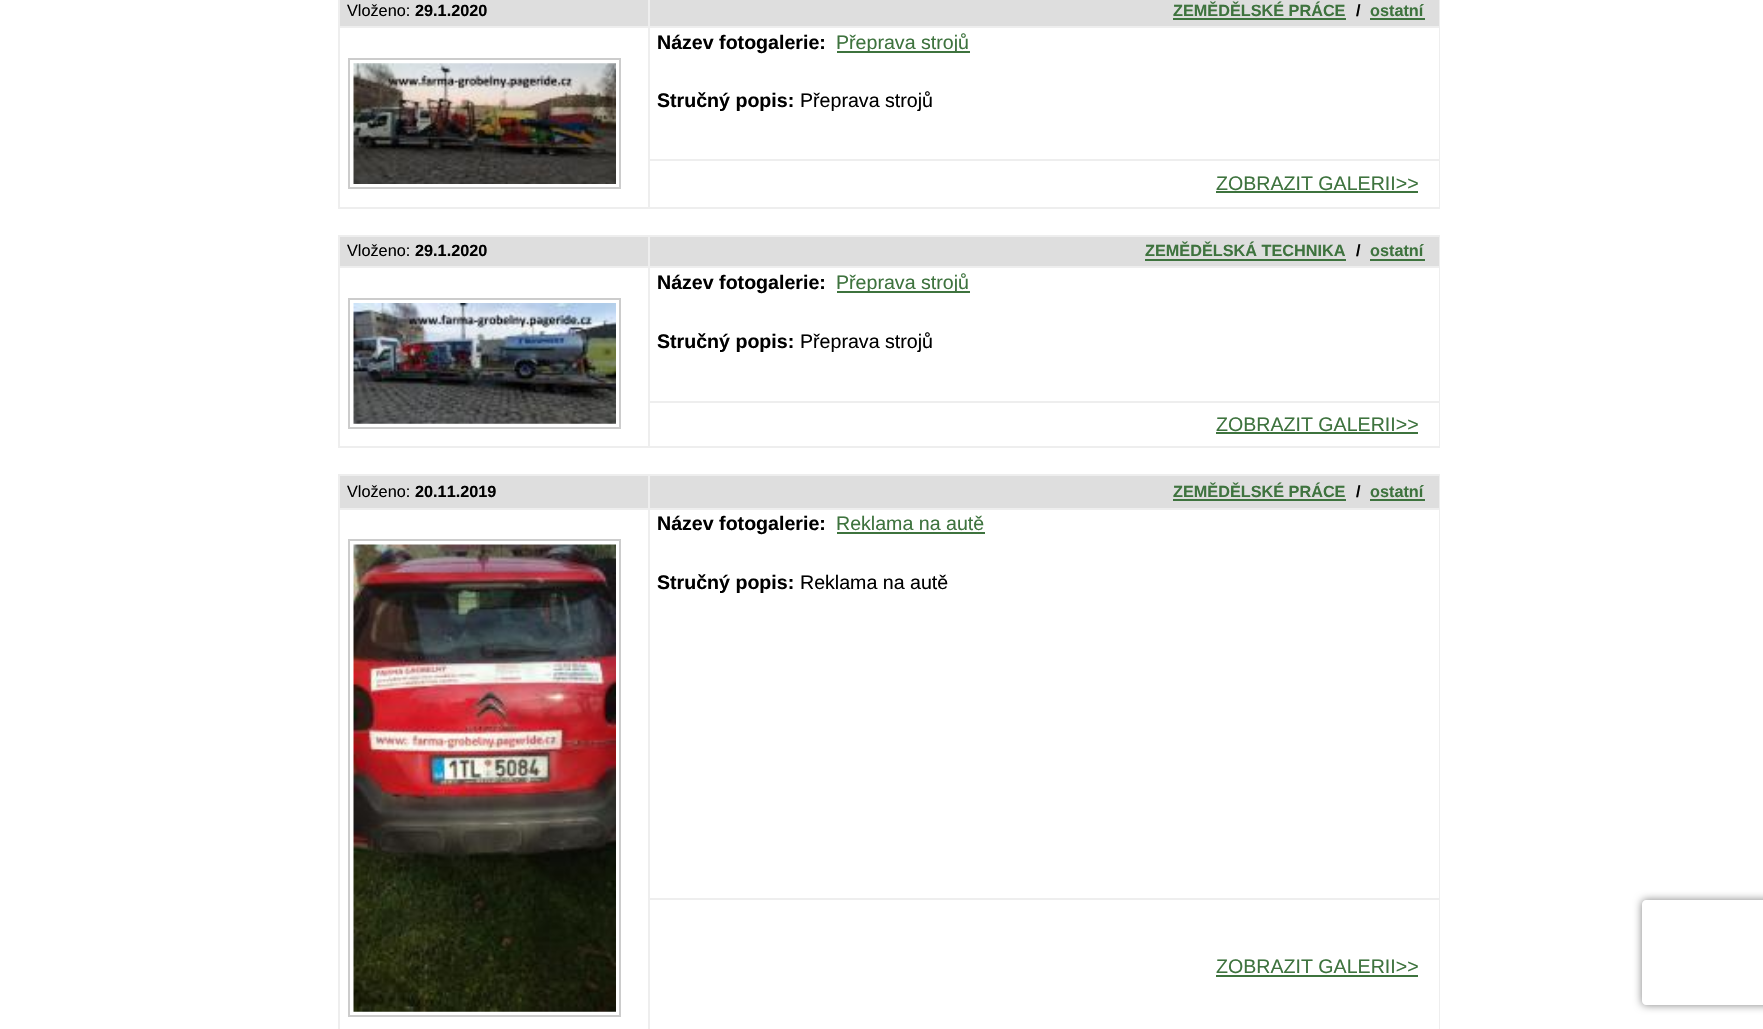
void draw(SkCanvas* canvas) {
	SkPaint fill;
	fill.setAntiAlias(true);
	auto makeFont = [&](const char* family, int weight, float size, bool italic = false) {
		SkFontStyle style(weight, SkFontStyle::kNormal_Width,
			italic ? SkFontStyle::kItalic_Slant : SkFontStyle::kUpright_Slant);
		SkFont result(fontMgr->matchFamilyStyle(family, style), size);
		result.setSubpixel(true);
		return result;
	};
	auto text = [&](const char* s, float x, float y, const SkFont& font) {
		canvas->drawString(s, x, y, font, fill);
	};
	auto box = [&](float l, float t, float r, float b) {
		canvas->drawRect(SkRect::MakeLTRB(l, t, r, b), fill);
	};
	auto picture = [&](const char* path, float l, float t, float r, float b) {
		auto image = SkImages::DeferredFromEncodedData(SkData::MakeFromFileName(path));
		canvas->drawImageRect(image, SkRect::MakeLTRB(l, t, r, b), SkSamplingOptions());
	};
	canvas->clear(0xFFFFFFFF);
	fill.setColor(0xFFEEEEEE);
	box(648, 26, 1440, 28);
	box(648, 159, 1440, 161);
	box(1439, 159, 1440, 208);
	box(648, 207, 1440, 209);
	box(648, 159, 650, 208);
	box(648, 26, 650, 161);
	box(338, 26, 649, 28);
	box(338, 207, 649, 209);
	box(338, 0, 340, 208);
	fill.setStyle(SkPaint::kStroke_Style);
	fill.setStrokeWidth(2);
	fill.setColor(0xFFCCCCCC);
	canvas->drawRect(SkRect::MakeLTRB(349, 59, 620, 188), fill);
	picture("image0.png", 353, 63, 616, 184);
	fill.setStyle(SkPaint::kFill_Style);
	fill.setColor(0xFFDEDEDE);
	box(340, 0, 1439, 26);
	fill.setColor(0xFFEEEEEE);
	box(648, 0, 650, 28);
	fill.setColor(0xFF3E733E);
	box(1173, 18, 1346, 20);
	box(1370, 18, 1425, 20);
	fill.setColor(0xFFEEEEEE);
	box(1439, 0, 1440, 161);
	fill.setColor(0xFF3E733E);
	box(837, 51, 970, 53);
	box(1216, 191, 1418, 193);
	fill.setColor(0xFFDEDEDE);
	box(340, 237, 1439, 266);
	fill.setColor(0xFFEEEEEE);
	box(648, 235, 1440, 237);
	box(648, 266, 1440, 268);
	box(648, 401, 1440, 403);
	box(1439, 401, 1440, 448);
	box(648, 446, 1440, 448);
	box(648, 401, 650, 448);
	box(648, 266, 650, 403);
	box(338, 266, 649, 268);
	box(648, 235, 650, 268);
	box(338, 235, 649, 237);
	box(338, 446, 649, 448);
	box(338, 266, 340, 448);
	box(338, 235, 340, 268);
	box(1439, 266, 1440, 403);
	box(1439, 235, 1440, 268);
	fill.setColor(0xFF3E733E);
	box(1145, 259, 1346, 261);
	box(1370, 259, 1425, 261);
	fill.setStyle(SkPaint::kStroke_Style);
	fill.setColor(0xFFCCCCCC);
	canvas->drawRect(SkRect::MakeLTRB(349, 299, 620, 428), fill);
	picture("image1.png", 353, 303, 616, 424);
	fill.setStyle(SkPaint::kFill_Style);
	fill.setColor(0xFF3E733E);
	box(837, 291, 970, 293);
	box(1216, 432, 1418, 434);
	fill.setColor(0xFFDEDEDE);
	box(340, 476, 1439, 508);
	fill.setColor(0xFFEEEEEE);
	box(648, 474, 1440, 476);
	box(648, 508, 1440, 510);
	box(648, 898, 1440, 900);
	box(648, 898, 650, 1029);
	box(648, 508, 650, 900);
	box(338, 508, 649, 510);
	box(648, 474, 650, 509);
	box(338, 474, 649, 476);
	box(338, 508, 340, 1029);
	box(338, 474, 340, 509);
	box(1439, 898, 1440, 1029);
	box(1439, 508, 1440, 900);
	box(1439, 474, 1440, 509);
	fill.setColor(0xFF3E733E);
	box(1173, 499, 1346, 501);
	box(1370, 499, 1425, 501);
	fill.setStyle(SkPaint::kStroke_Style);
	fill.setColor(0xFFCCCCCC);
	canvas->drawRect(SkRect::MakeLTRB(349, 540, 620, 1016), fill);
	picture("image2.png", 353, 544, 616, 1012);
	fill.setStyle(SkPaint::kFill_Style);
	fill.setColor(0xFF3E733E);
	box(837, 532, 985, 534);
	box(1216, 975, 1418, 977);
	canvas->save();
	canvas->clipPath(SkPathBuilder(SkPathFillType::kEvenOdd).moveTo(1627, 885).lineTo(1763, 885).lineTo(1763, 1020).lineTo(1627, 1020).close().moveTo(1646, 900).lineTo(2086, 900).cubicTo(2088, 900, 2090, 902, 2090, 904).lineTo(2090, 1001).cubicTo(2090, 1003, 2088, 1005, 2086, 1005).lineTo(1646, 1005).cubicTo(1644, 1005, 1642, 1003, 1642, 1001).lineTo(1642, 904).cubicTo(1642, 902, 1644, 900, 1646, 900).close().detach(), true);
	fill.setColor(0xFF808080);
	fill.setMaskFilter(SkMaskFilter::MakeBlur(kNormal_SkBlurStyle, 4.5f));
	canvas->drawRoundRect(SkRect::MakeLTRB(1642, 900, 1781, 1005), 4, 4, fill);
	fill.setMaskFilter(nullptr);
	canvas->restore();
	auto font1 = makeFont("Liberation Sans", 400, 16.25f);
	fill.setColor(0xFF000000);
	text("Vloženo:", 347, 16, font1);
	auto font2 = makeFont("Liberation Sans", 700, 16.25f);
	text("29.1.2020", 415, 16, font2);
	fill.setColor(0xFF3E733E);
	text("ZEMĚDĚLSKÉ PRÁCE", 1173, 16, font2);
	fill.setColor(0xFF000000);
	text("/", 1356, 16, font2);
	fill.setColor(0xFF3E733E);
	text("ostatní", 1370, 16, font2);
	auto font3 = makeFont("Liberation Sans", 700, 19.6f);
	fill.setColor(0xFF000000);
	text("Název fotogalerie:", 657, 49, font3);
	auto font4 = makeFont("Liberation Sans", 400, 19.6f);
	fill.setColor(0xFF3E733E);
	text("Přeprava strojů", 836, 49, font4);
	fill.setColor(0xFF000000);
	text("Stručný popis:", 657, 107, font3);
	text("Přeprava strojů", 800, 107, font4);
	fill.setColor(0xFF3E733E);
	text("ZOBRAZIT GALERII>>", 1216, 190, font4);
	fill.setColor(0xFF000000);
	text("Vloženo:", 347, 256, font1);
	text("29.1.2020", 415, 256, font2);
	fill.setColor(0xFF3E733E);
	text("ZEMĚDĚLSKÁ TECHNIKA", 1145, 256, font2);
	fill.setColor(0xFF000000);
	text("/", 1356, 256, font2);
	fill.setColor(0xFF3E733E);
	text("ostatní", 1370, 256, font2);
	fill.setColor(0xFF000000);
	text("Název fotogalerie:", 657, 289, font3);
	fill.setColor(0xFF3E733E);
	text("Přeprava strojů", 836, 289, font4);
	fill.setColor(0xFF000000);
	text("Stručný popis:", 657, 348, font3);
	text("Přeprava strojů", 800, 348, font4);
	fill.setColor(0xFF3E733E);
	text("ZOBRAZIT GALERII>>", 1216, 431, font4);
	fill.setColor(0xFF000000);
	text("Vloženo:", 347, 497, font1);
	text("20.11.2019", 415, 497, font2);
	fill.setColor(0xFF3E733E);
	text("ZEMĚDĚLSKÉ PRÁCE", 1173, 497, font2);
	fill.setColor(0xFF000000);
	text("/", 1356, 497, font2);
	fill.setColor(0xFF3E733E);
	text("ostatní", 1370, 497, font2);
	fill.setColor(0xFF000000);
	text("Název fotogalerie:", 657, 530, font3);
	fill.setColor(0xFF3E733E);
	text("Reklama na autě", 836, 530, font4);
	fill.setColor(0xFF000000);
	text("Stručný popis:", 657, 589, font3);
	text("Reklama na autě", 800, 589, font4);
	fill.setColor(0xFF3E733E);
	text("ZOBRAZIT GALERII>>", 1216, 973, font4);
}
